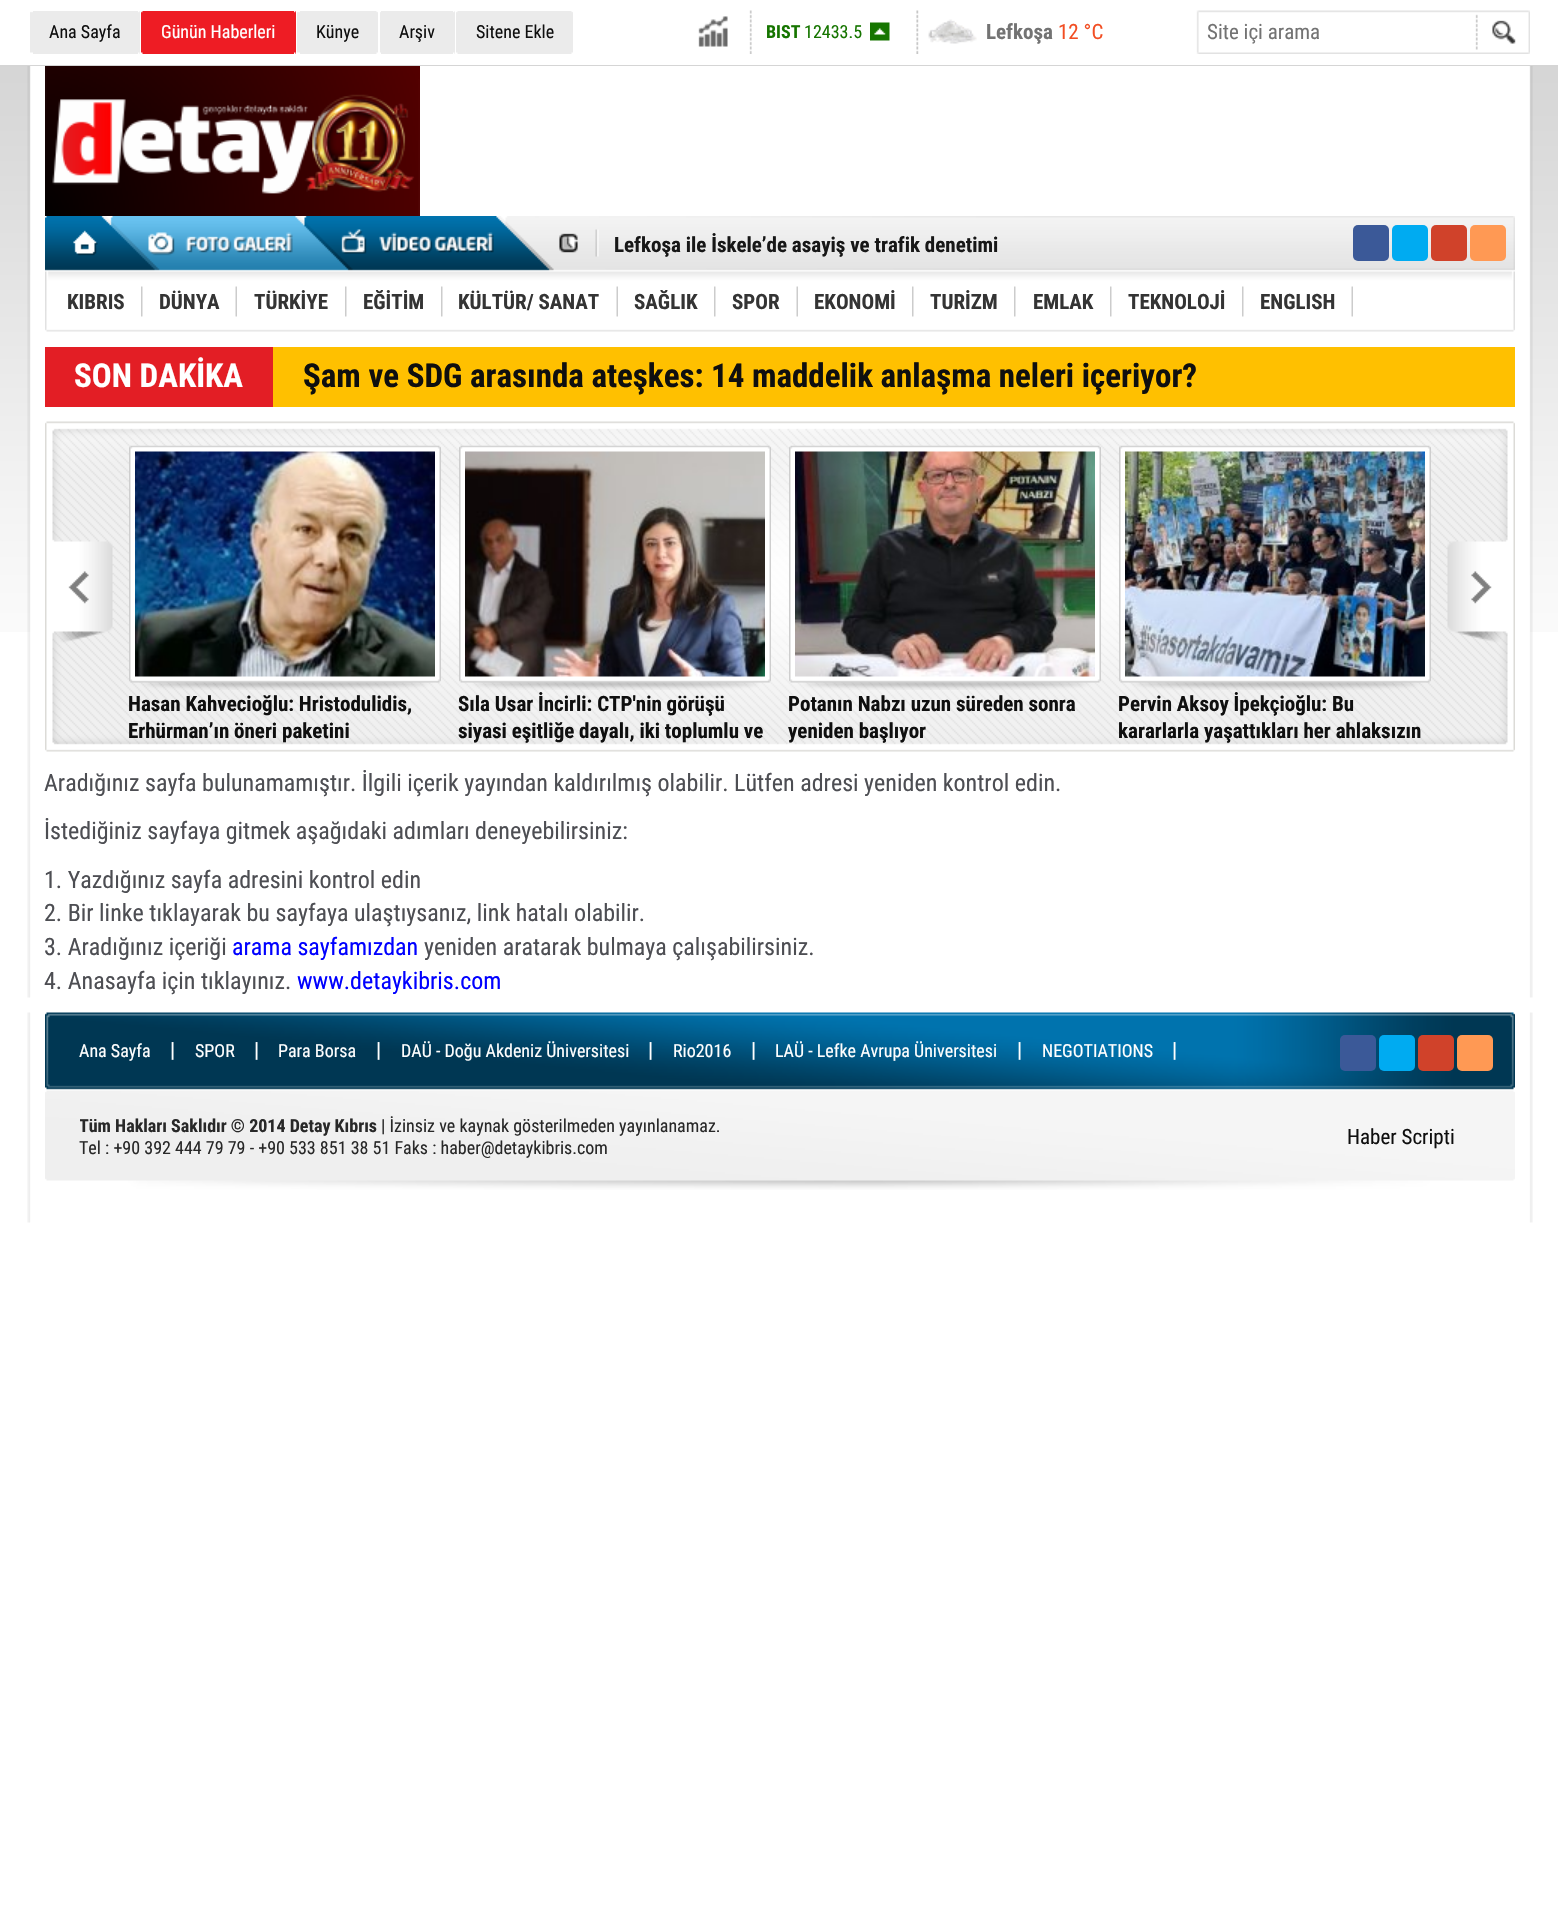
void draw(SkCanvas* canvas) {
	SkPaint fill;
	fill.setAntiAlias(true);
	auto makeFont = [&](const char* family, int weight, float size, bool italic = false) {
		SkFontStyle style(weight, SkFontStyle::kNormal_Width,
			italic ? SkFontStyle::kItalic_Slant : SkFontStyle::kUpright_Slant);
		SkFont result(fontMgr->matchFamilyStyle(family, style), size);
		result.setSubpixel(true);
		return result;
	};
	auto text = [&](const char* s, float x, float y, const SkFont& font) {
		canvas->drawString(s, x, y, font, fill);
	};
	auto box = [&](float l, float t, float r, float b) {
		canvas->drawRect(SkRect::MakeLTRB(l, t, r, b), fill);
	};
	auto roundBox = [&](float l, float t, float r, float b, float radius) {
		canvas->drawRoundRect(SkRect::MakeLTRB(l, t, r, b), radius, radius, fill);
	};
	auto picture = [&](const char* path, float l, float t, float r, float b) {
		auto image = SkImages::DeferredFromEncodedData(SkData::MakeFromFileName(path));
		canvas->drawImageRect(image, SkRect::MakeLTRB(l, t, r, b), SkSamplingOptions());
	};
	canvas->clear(0xFFFFFFFF);
	picture("image0.png", 0, 67, 1558, 632);
	fill.setColor(0xFFD5D5D5);
	box(0, 65, 1558, 67);
	picture("image1.png", 698, 10, 1530, 54);
	fill.setColor(0xFFEBEBEB);
	box(30, 11, 140, 54);
	picture("image2.png", 30, 11, 33, 54);
	picture("image3.png", 138, 11, 140, 54);
	fill.setColor(0xFFEE1C24);
	box(141, 11, 296, 54);
	picture("image4.png", 141, 11, 143, 54);
	picture("image4.png", 294, 11, 296, 54);
	fill.setColor(0xFFEBEBEB);
	box(297, 11, 378, 54);
	picture("image2.png", 297, 11, 300, 54);
	picture("image5.png", 376, 11, 378, 54);
	box(380, 11, 455, 54);
	picture("image6.png", 380, 11, 381, 54);
	picture("image3.png", 453, 11, 455, 54);
	box(456, 11, 573, 54);
	picture("image3.png", 456, 11, 458, 54);
	picture("image5.png", 571, 11, 573, 54);
	picture("image7.png", 870, 22, 890, 41);
	picture("image8.png", 928, 19, 977, 44);
	picture("image9.png", 27, 66, 1533, 767);
	picture("image10.png", 45, 216, 1515, 332);
	picture("image11.png", 45, 66, 420, 216);
	fill.setColor(0xFF3B5998);
	roundBox(1353, 225, 1389, 261, 5);
	fill.setColor(0xFF00ABF1);
	roundBox(1392, 225, 1428, 261, 5);
	fill.setColor(0xFFD0422A);
	roundBox(1431, 225, 1467, 261, 5);
	fill.setColor(0xFFFF9954);
	roundBox(1470, 225, 1506, 261, 5);
	picture("image12.png", 141, 286, 143, 317);
	picture("image13.png", 235, 286, 237, 317);
	picture("image12.png", 345, 286, 347, 317);
	picture("image12.png", 441, 286, 443, 317);
	picture("image13.png", 616, 286, 618, 317);
	picture("image12.png", 714, 286, 716, 317);
	picture("image13.png", 796, 286, 798, 317);
	picture("image12.png", 912, 286, 914, 317);
	picture("image12.png", 1014, 286, 1016, 317);
	picture("image12.png", 1110, 286, 1112, 317);
	picture("image12.png", 1242, 286, 1244, 317);
	picture("image13.png", 1351, 286, 1353, 317);
	fill.setColor(0xFFFFC000);
	box(273, 347, 1515, 407);
	fill.setColor(0xFFE31E25);
	box(45, 347, 273, 407);
	picture("image14.png", 45, 421, 1515, 752);
	picture("image15.png", 129, 445, 441, 690);
	picture("image16.png", 135, 451, 435, 677);
	picture("image17.png", 459, 445, 771, 690);
	picture("image18.png", 465, 451, 765, 677);
	picture("image19.png", 789, 445, 1101, 690);
	picture("image20.png", 795, 451, 1095, 677);
	picture("image21.png", 1119, 445, 1431, 690);
	picture("image22.png", 1125, 451, 1425, 677);
	picture("image23.png", 27, 766, 1533, 998);
	picture("image24.png", 27, 1012, 1533, 1223);
	picture("image25.png", 45, 1012, 1515, 1190);
	fill.setColor(0xFF3B5998);
	roundBox(1340, 1035, 1376, 1071, 5);
	fill.setColor(0xFF00ABF1);
	roundBox(1379, 1035, 1415, 1071, 5);
	fill.setColor(0xFFD0422A);
	roundBox(1418, 1035, 1454, 1071, 5);
	fill.setColor(0xFFFF9954);
	roundBox(1457, 1035, 1493, 1071, 5);
	auto font1 = makeFont("Roboto Condensed", 400, 18);
	fill.setColor(0xFF0F0F0F);
	text("Ana Sayfa", 49, 38, font1);
	fill.setColor(0xFFFFFFFF);
	text("Günün Haberleri", 161, 38, font1);
	fill.setColor(0xFF0F0F0F);
	text("Künye", 316, 38, font1);
	text("Arşiv", 399, 38, font1);
	text("Sitene Ekle", 476, 38, font1);
	canvas->save();
	canvas->clipRect(SkRect::MakeLTRB(767, 11, 902, 54));
	auto font2 = makeFont("Roboto Condensed", 700, 18);
	fill.setColor(0xFF167500);
	text("BIST", 766, 38, font2);
	canvas->restore();
	text("12433.5", 804, 38, font1);
	auto font3 = makeFont("Roboto Condensed", 700, 21);
	fill.setColor(0xFF737373);
	text("Lefkoşa", 986, 39, font3);
	auto font4 = makeFont("Roboto Condensed", 400, 21);
	fill.setColor(0xFFF24E23);
	text("12 °C", 1058, 39, font4);
	fill.setColor(0xFF737373);
	text("Site içi arama", 1207, 39, font4);
	fill.setColor(0xFF171717);
	text("Lefkoşa ile İskele’de asayiş ve trafik denetimi", 614, 252, font3);
	fill.setColor(0xFF343434);
	text("KIBRIS", 67, 309, font3);
	text("DÜNYA", 159, 309, font3);
	text("TÜRKİYE", 254, 309, font3);
	text("EĞİTİM", 363, 309, font3);
	text("KÜLTÜR/ SANAT", 458, 309, font3);
	text("SAĞLIK", 634, 309, font3);
	text("SPOR", 732, 309, font3);
	text("EKONOMİ", 814, 309, font3);
	text("TURİZM", 930, 309, font3);
	text("EMLAK", 1033, 309, font3);
	text("TEKNOLOJİ", 1128, 309, font3);
	text("ENGLISH", 1260, 309, font3);
	auto font5 = makeFont("Roboto Condensed", 700, 33);
	fill.setColor(0xFFFFFFFF);
	text("SON DAKİKA", 74, 387, font5);
	fill.setColor(0xFF0F0F0F);
	text("Şam ve SDG arasında ateşkes: 14 maddelik anlaşma neleri içeriyor?", 303, 387, font5);
	text("Hasan Kahvecioğlu: Hristodulidis,", 128, 711, font3);
	text("Erhürman’ın öneri paketini", 128, 738, font3);
	text("Sıla Usar İncirli: CTP'nin görüşü", 458, 711, font3);
	text("siyasi eşitliğe dayalı, iki toplumlu ve", 458, 738, font3);
	text("Potanın Nabzı uzun süreden sonra", 788, 711, font3);
	text("yeniden başlıyor", 788, 738, font3);
	text("Pervin Aksoy İpekçioğlu: Bu", 1118, 711, font3);
	text("kararlarla yaşattıkları her ahlaksızın", 1118, 738, font3);
	auto font6 = makeFont("Roboto Condensed", 400, 24);
	fill.setColor(0xFF4D4E53);
	text("Aradığınız sayfa bulunamamıştır. İlgili içerik yayından kaldırılmış olabilir. Lütfen adresi yeniden kontrol edin.", 44, 791, font6);
	text("İstediğiniz sayfaya gitmek aşağıdaki adımları deneyebilirsiniz:", 44, 839, font6);
	text("1. Yazdığınız sayfa adresini kontrol edin", 44, 888, font6);
	text("2. Bir linke tıklayarak bu sayfaya ulaştıysanız, link hatalı olabilir.", 44, 921, font6);
	text("3. Aradığınız içeriği", 44, 955, font6);
	fill.setColor(0xFF0000FF);
	text("arama sayfamızdan", 232, 955, font6);
	fill.setColor(0xFF4D4E53);
	text("yeniden aratarak bulmaya çalışabilirsiniz.", 424, 955, font6);
	text("4. Anasayfa için tıklayınız.", 44, 989, font6);
	fill.setColor(0xFF0000FF);
	text("www.detaykibris.com", 297, 989, font6);
	fill.setColor(0xFFFFFFFF);
	text("Ana Sayfa", 79, 1057, font1);
	text("|", 170, 1057, font4);
	text("SPOR", 195, 1057, font1);
	text("|", 254, 1057, font4);
	text("Para Borsa", 278, 1057, font1);
	text("|", 376, 1057, font4);
	text("DAÜ - Doğu Akdeniz Üniversitesi", 401, 1057, font1);
	text("|", 648, 1057, font4);
	text("Rio2016", 673, 1057, font1);
	text("|", 751, 1057, font4);
	text("LAÜ - Lefke Avrupa Üniversitesi", 775, 1057, font1);
	text("|", 1017, 1057, font4);
	text("NEGOTIATIONS", 1042, 1057, font1);
	text("|", 1172, 1057, font4);
	canvas->save();
	canvas->clipRect(SkRect::MakeLTRB(80, 1115, 980, 1160));
	fill.setColor(0xFF282828);
	text("Tüm Hakları Saklıdır © 2014 Detay Kıbrıs", 79, 1132, font2);
	canvas->restore();
	text("| İzinsiz ve kaynak gösterilmeden yayınlanamaz.", 381, 1132, font1);
	text("Tel : +90 392 444 79 79 - +90 533 851 38 51 Faks : haber@detaykibris.com", 79, 1154, font1);
	fill.setColor(0xFF0F0F0F);
	text("Haber Scripti", 1347, 1144, font4);
}
